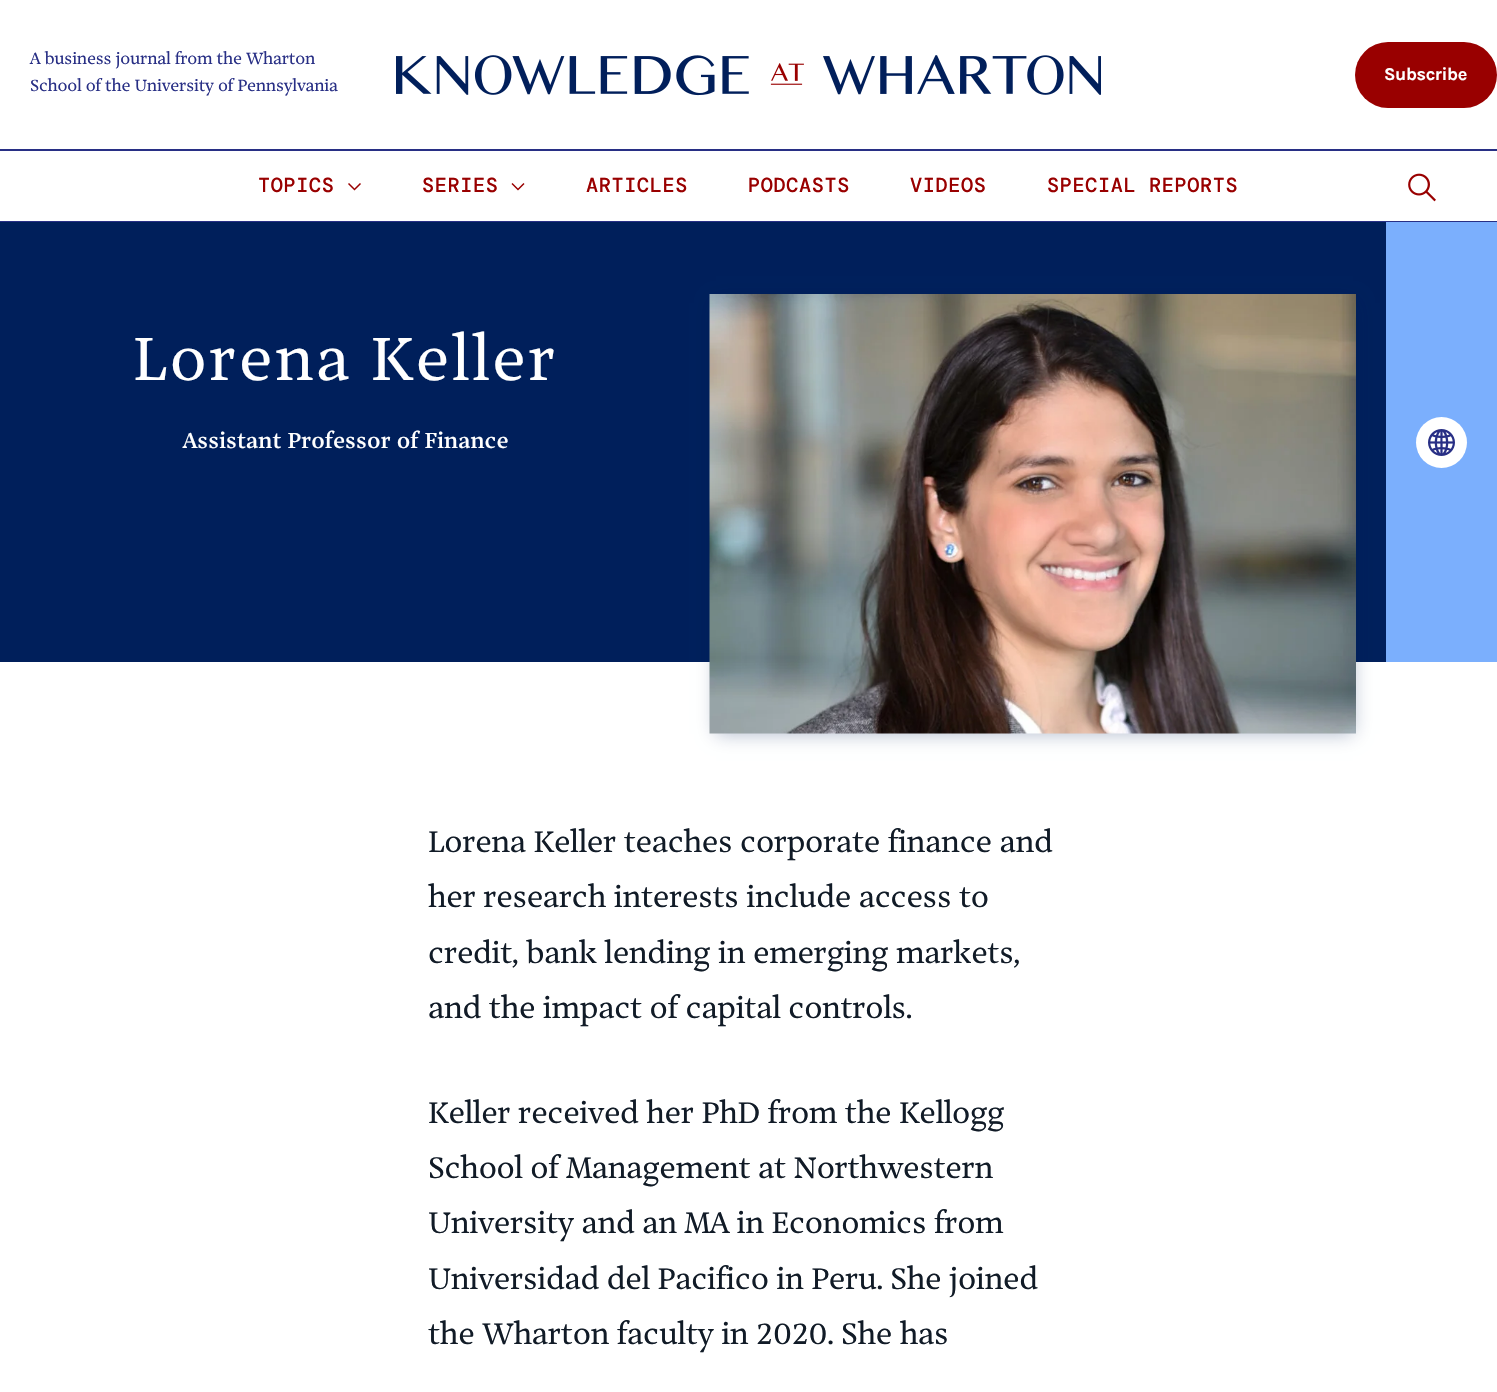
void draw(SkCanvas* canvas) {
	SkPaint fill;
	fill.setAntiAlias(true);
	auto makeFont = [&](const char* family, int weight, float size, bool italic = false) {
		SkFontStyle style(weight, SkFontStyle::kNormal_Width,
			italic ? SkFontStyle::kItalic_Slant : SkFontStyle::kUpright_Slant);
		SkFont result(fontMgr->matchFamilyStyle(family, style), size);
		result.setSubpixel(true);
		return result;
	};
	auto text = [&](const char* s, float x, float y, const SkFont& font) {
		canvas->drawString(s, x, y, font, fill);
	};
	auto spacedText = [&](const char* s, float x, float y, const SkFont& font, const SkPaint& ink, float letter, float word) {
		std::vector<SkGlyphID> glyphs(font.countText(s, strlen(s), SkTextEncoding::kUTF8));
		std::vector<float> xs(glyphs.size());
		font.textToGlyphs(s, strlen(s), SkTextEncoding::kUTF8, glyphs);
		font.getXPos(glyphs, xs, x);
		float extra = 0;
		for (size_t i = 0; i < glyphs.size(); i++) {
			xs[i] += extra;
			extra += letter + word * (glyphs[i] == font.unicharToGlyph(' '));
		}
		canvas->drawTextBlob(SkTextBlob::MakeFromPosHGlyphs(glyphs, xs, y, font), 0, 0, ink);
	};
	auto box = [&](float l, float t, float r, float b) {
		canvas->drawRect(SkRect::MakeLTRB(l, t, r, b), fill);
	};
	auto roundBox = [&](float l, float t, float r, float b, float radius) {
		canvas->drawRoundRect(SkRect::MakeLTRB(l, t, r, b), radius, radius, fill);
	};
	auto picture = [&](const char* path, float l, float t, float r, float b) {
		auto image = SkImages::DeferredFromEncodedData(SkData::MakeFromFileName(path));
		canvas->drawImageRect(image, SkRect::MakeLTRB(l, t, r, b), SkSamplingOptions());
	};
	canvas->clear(0xFFFFFFFF);
	picture("image0.png", 396, 55, 1101, 96);
	fill.setColor(0xFF990000);
	roundBox(1355, 42, 1497, 108, 33);
	fill.setColor(0xFF282F85);
	box(0, 149, 1497, 151);
	fill.setStyle(SkPaint::kStroke_Style);
	fill.setStrokeWidth(1.5f);
	fill.setColor(0xFF990000);
	canvas->drawPath(SkPathBuilder().moveTo(348.5f, 183.5f).lineTo(354.5f, 189.5f).lineTo(360.5f, 183.5f).detach(), fill);
	canvas->drawPath(SkPathBuilder().moveTo(512, 183.5f).lineTo(518, 189.5f).lineTo(524, 183.5f).detach(), fill);
	picture("image1.png", 1408, 173, 1436, 202);
	fill.setStyle(SkPaint::kFill_Style);
	fill.setColor(0xFF282F85);
	box(0, 221, 1497, 222);
	fill.setColor(0xFF001F5B);
	box(0, 222, 1386, 662);
	fill.setColor(0x4D001F5B);
	fill.setMaskFilter(SkMaskFilter::MakeBlur(kNormal_SkBlurStyle, 9));
	canvas->drawRect(SkRect::MakeLTRB(716, 303, 1353, 734), fill);
	fill.setMaskFilter(nullptr);
	picture("image2.png", 709, 294, 1356, 734);
	fill.setColor(0xFF7BAFFD);
	box(1386, 222, 1497, 662);
	fill.setColor(0xFFFFFFFF);
	canvas->drawCircle(1441.5f, 442.5f, 25.5f, fill);
	picture("image3.png", 1428, 429, 1455, 456);
	auto font1 = makeFont("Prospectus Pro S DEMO", 400, 18);
	fill.setColor(0xFF282F85);
	spacedText("A business journal from the Wharton", 30, 64, font1, fill, -0.3f, 0);
	spacedText("School of the University of Pennsylvania", 30, 91, font1, fill, -0.3f, 0);
	auto font2 = makeFont("Karla", 700, 18);
	fill.setColor(0xFFFFFFFF);
	spacedText("Subscribe", 1384, 80, font2, fill, -0.4f, 0);
	auto font3 = makeFont("DM Mono", 500, 20.25f);
	fill.setColor(0xFF990000);
	spacedText("TOPICS", 258, 192, font3, fill, 0.6f, 0);
	spacedText("SERIES", 422, 192, font3, fill, 0.6f, 0);
	spacedText("ARTICLES", 586, 192, font3, fill, 0.6f, 0);
	spacedText("PODCASTS", 748, 192, font3, fill, 0.6f, 0);
	spacedText("VIDEOS", 910, 192, font3, fill, 0.6f, 0);
	spacedText("SPECIAL REPORTS", 1047, 192, font3, fill, 0.6f, 0);
	auto font4 = makeFont("Prospectus Pro S DEMO", 400, 67.5f);
	fill.setColor(0xFFFFFFFF);
	spacedText("Lorena Keller", 133, 380, font4, fill, 2.1f, 0);
	auto font5 = makeFont("Prospectus Pro S DEMO", 600, 24);
	text("Assistant Professor of Finance", 183, 448, font5);
	auto font6 = makeFont("Prospectus Pro S DEMO", 400, 33);
	fill.setColor(0xFF111B27);
	spacedText("Lorena Keller teaches corporate finance and", 428, 852, font6, fill, -0.5f, 0);
	spacedText("her research interests include access to", 428, 907, font6, fill, -0.5f, 0);
	spacedText("credit, bank lending in emerging markets,", 428, 963, font6, fill, -0.5f, 0);
	spacedText("and the impact of capital controls.", 428, 1018, font6, fill, -0.5f, 0);
	spacedText("Keller received her PhD from the Kellogg", 428, 1123, font6, fill, -0.5f, 0);
	spacedText("School of Management at Northwestern", 428, 1178, font6, fill, -0.5f, 0);
	spacedText("University and an MA in Economics from", 428, 1233, font6, fill, -0.5f, 0);
	spacedText("Universidad del Pacifico in Peru. She joined", 428, 1289, font6, fill, -0.5f, 0);
	spacedText("the Wharton faculty in 2020. She has", 428, 1344, font6, fill, -0.5f, 0);
}
